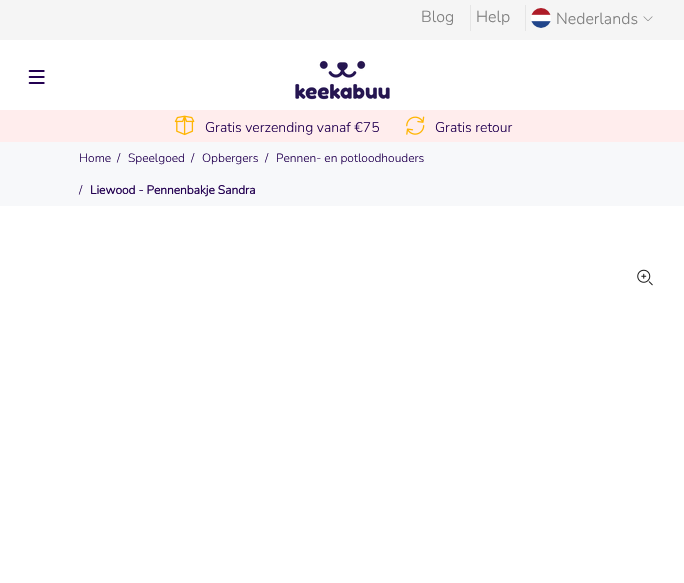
void draw(SkCanvas* canvas) {
	SkPaint fill;
	fill.setAntiAlias(true);
	auto makeFont = [&](const char* family, int weight, float size, bool italic = false) {
		SkFontStyle style(weight, SkFontStyle::kNormal_Width,
			italic ? SkFontStyle::kItalic_Slant : SkFontStyle::kUpright_Slant);
		SkFont result(fontMgr->matchFamilyStyle(family, style), size);
		result.setSubpixel(true);
		return result;
	};
	auto text = [&](const char* s, float x, float y, const SkFont& font) {
		canvas->drawString(s, x, y, font, fill);
	};
	auto box = [&](float l, float t, float r, float b) {
		canvas->drawRect(SkRect::MakeLTRB(l, t, r, b), fill);
	};
	auto picture = [&](const char* path, float l, float t, float r, float b) {
		auto image = SkImages::DeferredFromEncodedData(SkData::MakeFromFileName(path));
		canvas->drawImageRect(image, SkRect::MakeLTRB(l, t, r, b), SkSamplingOptions());
	};
	canvas->clear(0xFFFFFFFF);
	fill.setColor(0xFFF5F5F5);
	box(0, 0, 684, 40);
	fill.setColor(0xFFE5E5E5);
	box(470, 5, 471, 31);
	box(525, 5, 526, 31);
	picture("image0.png", 531, 8, 551, 28);
	picture("image1.png", 643, 16, 653, 21);
	picture("image2.png", 28, 70, 45, 84);
	picture("image3.png", 295, 60, 390, 100);
	fill.setColor(0xFFFFEDED);
	box(0, 110, 684, 142);
	picture("image4.png", 174, 115, 195, 136);
	picture("image5.png", 406, 116, 425, 135);
	fill.setColor(0xFFF7F8FA);
	box(0, 142, 684, 206);
	picture("image6.png", 637, 269, 653, 286);
	auto font1 = makeFont("Nunito", 300, 16);
	fill.setColor(0xFF7D7D7D);
	text("Blog", 421, 22, font1);
	text("Help", 476, 22, font1);
	text("Nederlands", 556, 24, font1);
	auto font2 = makeFont("Nunito", 300, 14);
	fill.setColor(0xFF230051);
	text("Gratis verzending vanaf €75", 205, 132, font2);
	text("Gratis retour", 435, 132, font2);
	auto font3 = makeFont("Nunito", 300, 12);
	text("Home", 79, 162, font3);
	text("/", 117, 162, font3);
	text("Speelgoed", 128, 162, font3);
	text("/", 191, 162, font3);
	text("Opbergers", 202, 162, font3);
	text("/", 265, 162, font3);
	text("Pennen- en potloodhouders", 276, 162, font3);
	text("/", 79, 194, font3);
	auto font4 = makeFont("Nunito", 700, 12);
	text("Liewood - Pennenbakje Sandra", 90, 194, font4);
}
